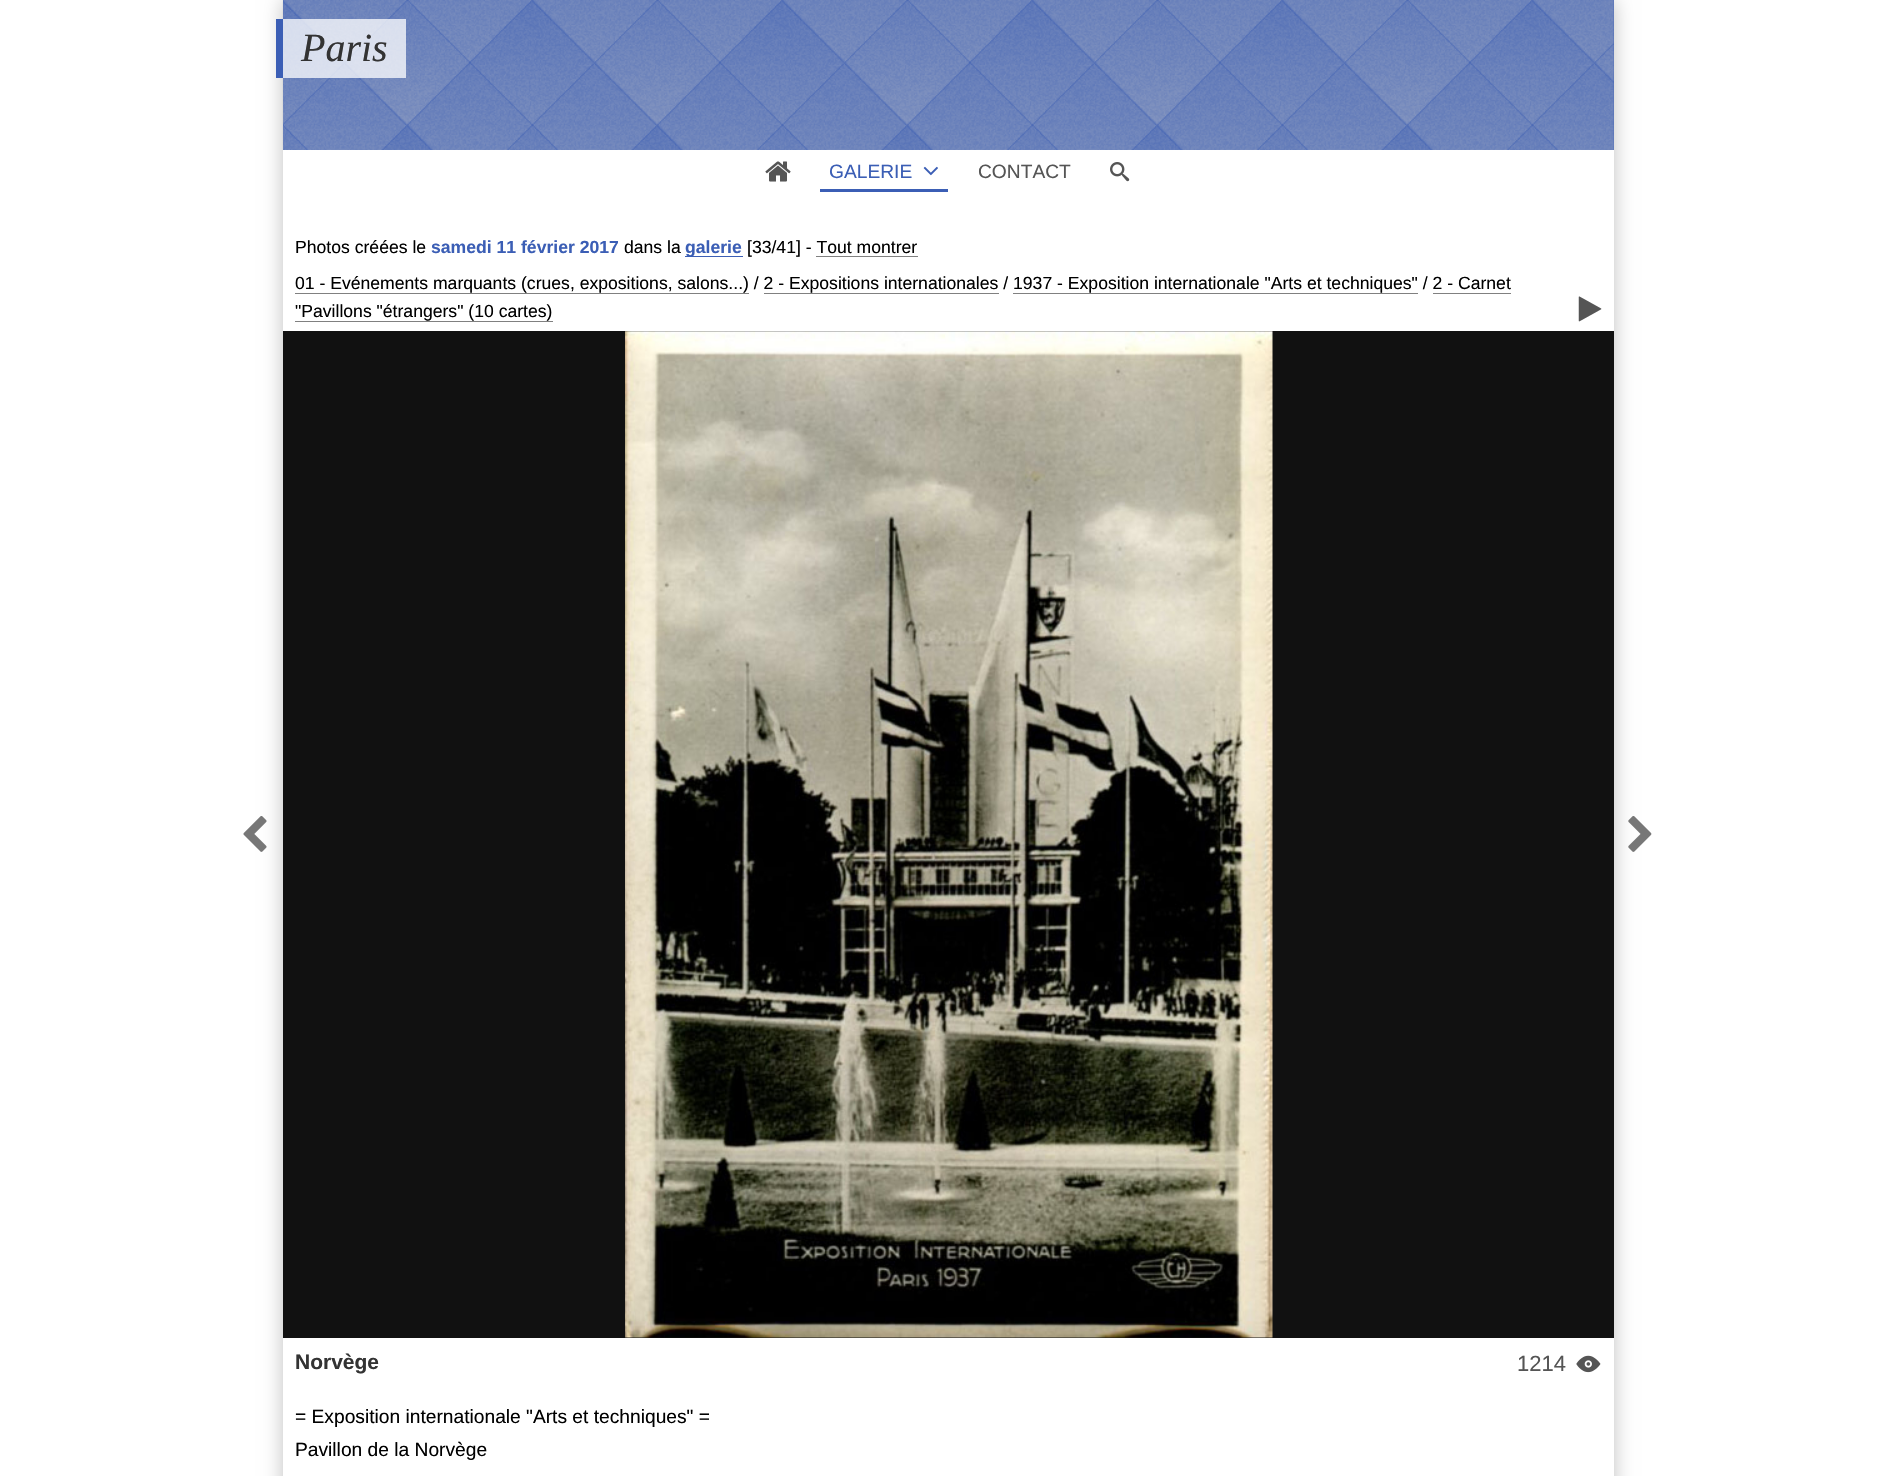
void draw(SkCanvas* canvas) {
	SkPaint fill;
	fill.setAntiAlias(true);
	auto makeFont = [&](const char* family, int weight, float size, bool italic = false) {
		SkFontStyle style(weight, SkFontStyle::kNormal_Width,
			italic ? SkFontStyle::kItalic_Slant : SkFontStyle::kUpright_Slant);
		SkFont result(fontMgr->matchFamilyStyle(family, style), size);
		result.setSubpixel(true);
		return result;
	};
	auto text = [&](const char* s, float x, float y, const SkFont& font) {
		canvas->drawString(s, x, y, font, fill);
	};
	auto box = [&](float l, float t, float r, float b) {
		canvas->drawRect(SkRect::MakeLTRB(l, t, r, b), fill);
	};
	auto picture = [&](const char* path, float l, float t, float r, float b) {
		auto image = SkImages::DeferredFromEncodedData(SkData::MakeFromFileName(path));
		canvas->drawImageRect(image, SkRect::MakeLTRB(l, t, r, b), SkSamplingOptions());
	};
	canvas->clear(0xFFFFFFFF);
	fill.setColor(0xFFC0C0C0);
	fill.setMaskFilter(SkMaskFilter::MakeBlur(kNormal_SkBlurStyle, 9.5f));
	canvas->drawRect(SkRect::MakeLTRB(283, 0, 1614, 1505), fill);
	fill.setMaskFilter(nullptr);
	fill.setColor(0xFFFFFFFF);
	box(283, 150, 1614, 1476);
	fill.setColor(0xFF3B5EB5);
	box(283, 0, 1614, 150);
	picture("image0.png", 282, 0, 1614, 150);
	fill.setColor(0xBFFFFFFF);
	box(283, 19, 406, 78);
	fill.setColor(0xFF3B5EB5);
	box(276, 19, 283, 78);
	picture("image1.png", 765, 161, 791, 182);
	box(820, 189, 948, 192);
	picture("image2.png", 923, 166, 938, 176);
	picture("image3.png", 1110, 162, 1130, 182);
	box(685, 256, 743, 257);
	fill.setColor(0xFF808080);
	box(295, 293, 749, 294);
	box(764, 293, 999, 294);
	box(1013, 293, 1418, 294);
	box(1433, 293, 1511, 294);
	box(295, 321, 553, 322);
	picture("image4.png", 1578, 296, 1602, 322);
	fill.setColor(0xFF111111);
	box(283, 331, 1614, 1338);
	picture("image5.png", 243, 816, 267, 852);
	picture("image6.png", 625, 331, 1273, 1338);
	picture("image7.png", 1628, 816, 1652, 852);
	picture("image8.png", 1576, 1355, 1601, 1373);
	auto font1 = makeFont("Liberation Serif", 400, 40, true);
	fill.setColor(0xFF333333);
	text("Paris", 301, 61, font1);
	auto font2 = makeFont("Liberation Sans", 400, 19.2f);
	fill.setColor(0xFF3B5EB5);
	text("GALERIE", 829, 178, font2);
	fill.setColor(0xFF555555);
	text("CONTACT", 978, 178, font2);
	auto font3 = makeFont("Liberation Sans", 400, 17.6f);
	fill.setColor(0xFF000000);
	text("Photos créées le", 295, 253, font3);
	auto font4 = makeFont("Liberation Sans", 700, 17.6f);
	fill.setColor(0xFF3B5EB5);
	text("samedi 11 février 2017", 431, 253, font4);
	fill.setColor(0xFF000000);
	text("dans la", 624, 253, font3);
	fill.setColor(0xFF3B5EB5);
	text("galerie", 685, 253, font4);
	fill.setColor(0xFF000000);
	text("[33/41] - Tout montrer", 747, 253, font3);
	fill.setColor(0xFF808080);
	box(816, 256, 918, 257);
	fill.setColor(0xFF000000);
	text("01 - Evénements marquants (crues, expositions, salons...) / 2 - Expositions internationales / 1937 - Exposition internationale \"Arts et techniques\" / 2 - Carnet", 295, 289, font3);
	text("\"Pavillons \"étrangers\" (10 cartes)", 295, 317, font3);
	auto font5 = makeFont("Liberation Sans", 700, 21);
	fill.setColor(0xFF333333);
	text("Norvège", 295, 1369, font5);
	auto font6 = makeFont("Liberation Sans", 400, 22);
	fill.setColor(0xFF555555);
	text("1214", 1517, 1371, font6);
	fill.setColor(0xFF000000);
	text("= Exposition internationale \"Arts et techniques\" =", 295, 1423, font2);
	text("Pavillon de la Norvège", 295, 1456, font2);
}
